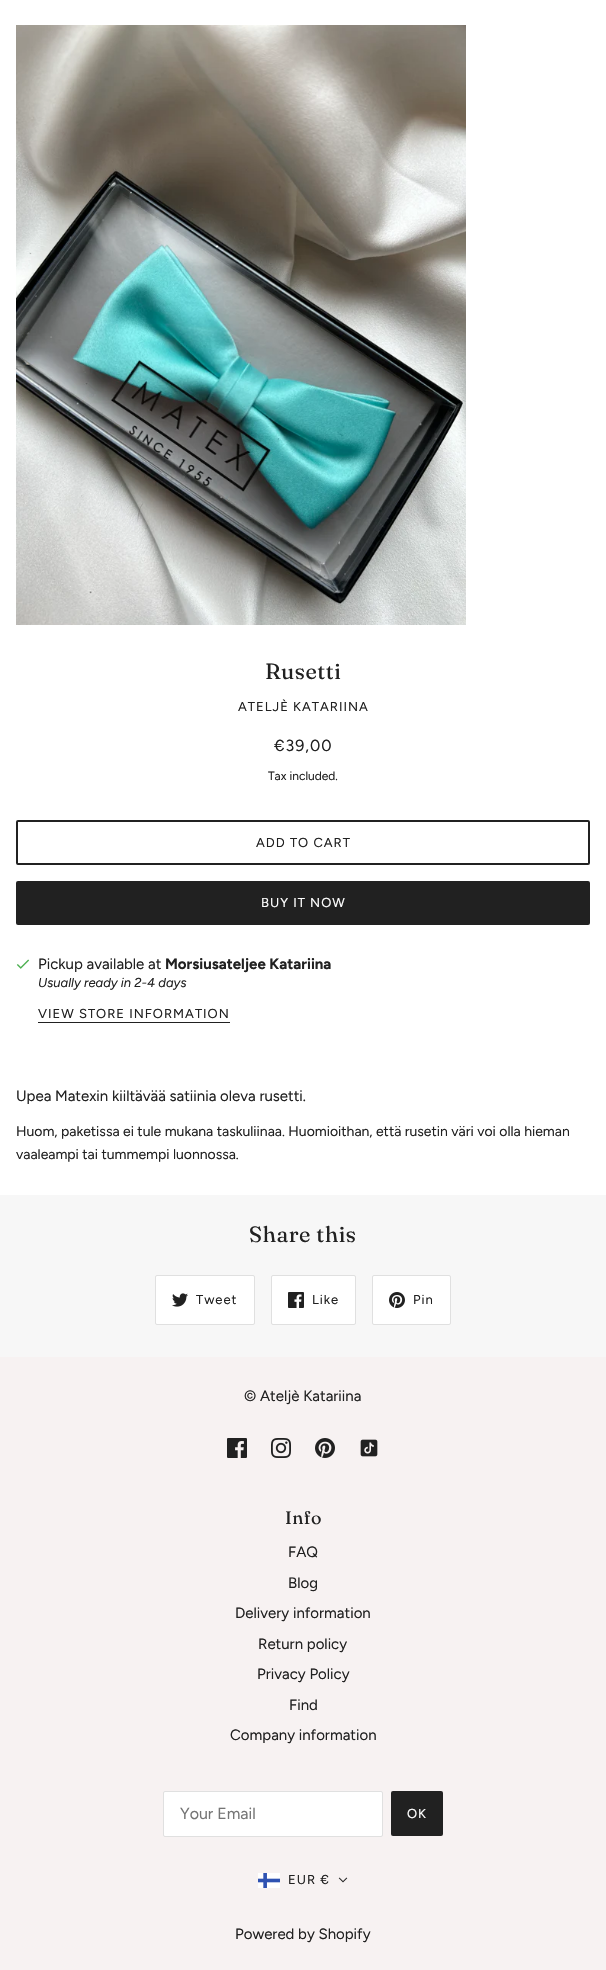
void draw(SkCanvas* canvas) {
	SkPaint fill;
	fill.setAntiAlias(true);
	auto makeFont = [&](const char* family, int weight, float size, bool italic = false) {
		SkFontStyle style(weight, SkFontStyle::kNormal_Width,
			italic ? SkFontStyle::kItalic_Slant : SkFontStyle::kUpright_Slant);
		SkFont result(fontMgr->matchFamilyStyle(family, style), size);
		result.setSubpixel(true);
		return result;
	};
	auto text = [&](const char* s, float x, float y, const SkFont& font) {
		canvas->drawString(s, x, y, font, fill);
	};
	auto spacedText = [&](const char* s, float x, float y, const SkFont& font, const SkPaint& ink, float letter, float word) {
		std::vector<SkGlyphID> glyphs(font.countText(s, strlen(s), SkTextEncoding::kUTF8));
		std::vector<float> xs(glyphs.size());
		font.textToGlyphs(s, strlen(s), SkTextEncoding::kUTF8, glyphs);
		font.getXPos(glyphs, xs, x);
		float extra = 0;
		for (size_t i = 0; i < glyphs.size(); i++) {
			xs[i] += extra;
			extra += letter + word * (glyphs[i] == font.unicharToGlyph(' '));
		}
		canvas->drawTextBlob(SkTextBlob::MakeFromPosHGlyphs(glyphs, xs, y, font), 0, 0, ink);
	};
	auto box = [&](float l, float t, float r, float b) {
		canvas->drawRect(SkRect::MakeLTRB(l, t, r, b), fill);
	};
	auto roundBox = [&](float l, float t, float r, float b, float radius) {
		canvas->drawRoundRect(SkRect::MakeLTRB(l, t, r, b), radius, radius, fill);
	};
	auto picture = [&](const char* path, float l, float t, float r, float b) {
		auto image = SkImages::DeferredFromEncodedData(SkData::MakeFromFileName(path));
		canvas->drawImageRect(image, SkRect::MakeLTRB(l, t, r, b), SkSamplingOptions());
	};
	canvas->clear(0xFFFFFFFF);
	picture("image0.png", 16, 25, 466, 625);
	fill.setStyle(SkPaint::kStroke_Style);
	fill.setStrokeWidth(2);
	fill.setColor(0xFF212121);
	canvas->drawRoundRect(SkRect::MakeLTRB(17, 821, 589, 864), 1, 1, fill);
	fill.setStyle(SkPaint::kFill_Style);
	roundBox(16, 881, 590, 925, 2);
	picture("image1.png", 16, 959, 30, 969);
	box(38, 1022, 230, 1023);
	fill.setColor(0xFFF7F7F7);
	box(0, 1195, 606, 1357);
	fill.setColor(0xFFFFFFFF);
	canvas->drawRoundRect(SkRect::MakeLTRB(155.5f, 1275.5f, 254.5f, 1324.5f), 1.5f, 1.5f, fill);
	fill.setStyle(SkPaint::kStroke_Style);
	fill.setStrokeWidth(1);
	fill.setColor(0xFFE0E0E0);
	canvas->drawRoundRect(SkRect::MakeLTRB(155.5f, 1275.5f, 254.5f, 1324.5f), 1.5f, 1.5f, fill);
	picture("image2.png", 172, 1293, 188, 1307);
	fill.setStyle(SkPaint::kFill_Style);
	fill.setColor(0xFFFFFFFF);
	canvas->drawRoundRect(SkRect::MakeLTRB(271.5f, 1275.5f, 355.5f, 1324.5f), 1.5f, 1.5f, fill);
	fill.setStyle(SkPaint::kStroke_Style);
	fill.setColor(0xFFE0E0E0);
	canvas->drawRoundRect(SkRect::MakeLTRB(271.5f, 1275.5f, 355.5f, 1324.5f), 1.5f, 1.5f, fill);
	picture("image3.png", 288, 1292, 304, 1308);
	fill.setStyle(SkPaint::kFill_Style);
	fill.setColor(0xFFFFFFFF);
	canvas->drawRoundRect(SkRect::MakeLTRB(372.5f, 1275.5f, 450.5f, 1324.5f), 1.5f, 1.5f, fill);
	fill.setStyle(SkPaint::kStroke_Style);
	fill.setColor(0xFFE0E0E0);
	canvas->drawRoundRect(SkRect::MakeLTRB(372.5f, 1275.5f, 450.5f, 1324.5f), 1.5f, 1.5f, fill);
	picture("image4.png", 389, 1292, 405, 1308);
	fill.setStyle(SkPaint::kFill_Style);
	fill.setColor(0xFFF7F2F2);
	box(0, 1357, 606, 1970);
	picture("image5.png", 227, 1438, 247, 1458);
	picture("image6.png", 271, 1438, 291, 1458);
	picture("image7.png", 315, 1438, 335, 1458);
	picture("image8.png", 360, 1439, 378, 1457);
	fill.setColor(0xFFFFFFFF);
	canvas->drawRoundRect(SkRect::MakeLTRB(163.5f, 1791.5f, 382.5f, 1836.5f), 1.5f, 1.5f, fill);
	fill.setStyle(SkPaint::kStroke_Style);
	fill.setColor(0xFFE0E0E0);
	canvas->drawRoundRect(SkRect::MakeLTRB(163.5f, 1791.5f, 382.5f, 1836.5f), 1.5f, 1.5f, fill);
	fill.setStyle(SkPaint::kFill_Style);
	fill.setColor(0xFF212121);
	roundBox(391, 1791, 443, 1836, 2);
	picture("image9.png", 258, 1873, 280, 1888);
	picture("image10.png", 338, 1877, 348, 1883);
	auto font1 = makeFont("Fraunces", 400, 22);
	spacedText("Rusetti", 265, 679, font1, fill, 0.5f, 0);
	auto font2 = makeFont("Figtree", 400, 13);
	spacedText("ATELJÈ KATARIINA", 238, 711, font2, fill, 1, 0);
	auto font3 = makeFont("Figtree", 400, 16);
	spacedText("€39,00", 274, 751, font3, fill, 1, 0);
	auto font4 = makeFont("Figtree", 400, 12);
	text("Tax included.", 268, 780, font4);
	spacedText("ADD TO CART", 256, 847, font2, fill, 1, 0);
	fill.setColor(0xFFFFFFFF);
	spacedText("BUY IT NOW", 261, 907, font2, fill, 1, 0);
	auto font5 = makeFont("Figtree", 400, 15);
	fill.setColor(0xFF212121);
	text("Pickup available at", 38, 969, font5);
	auto font6 = makeFont("Figtree", 700, 15);
	text("Morsiusateljee Katariina", 165, 969, font6);
	auto font7 = makeFont("Figtree", 400, 13, true);
	text("Usually ready in 2-4 days", 38, 987, font7);
	spacedText("VIEW STORE INFORMATION", 38, 1018, font2, fill, 1, 0);
	text("Upea Matexin kiiltävää satiinia oleva rusetti.", 16, 1101, font5);
	auto font8 = makeFont("Figtree", 400, 14);
	text("Huom, paketissa ei tule mukana taskuliinaa. Huomioithan, että rusetin väri voi olla hieman", 16, 1136, font8);
	text("vaaleampi tai tummempi luonnossa.", 16, 1159, font8);
	spacedText("Share this", 249, 1242, font1, fill, 0.5f, 0);
	spacedText("Tweet", 196, 1304, font2, fill, 1, 0);
	spacedText("Like", 312, 1304, font2, fill, 1, 0);
	spacedText("Pin", 413, 1304, font2, fill, 1, 0);
	text("© Ateljè Katariina", 244, 1401, font5);
	auto font9 = makeFont("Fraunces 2", 400, 18);
	spacedText("Info", 285, 1524, font9, fill, 0.5f, 0);
	text("FAQ", 288, 1557, font5);
	text("Blog", 288, 1588, font5);
	text("Delivery information", 235, 1618, font5);
	text("Return policy", 258, 1649, font5);
	text("Privacy Policy", 257, 1679, font5);
	text("Find", 289, 1710, font5);
	text("Company information", 230, 1740, font5);
	fill.setColor(0xFF757575);
	text("Your Email", 180, 1819, font3);
	fill.setColor(0xFFFFFFFF);
	spacedText("OK", 407, 1818, font2, fill, 1, 0);
	fill.setColor(0xFF212121);
	spacedText("EUR €", 288, 1884, font2, fill, 1, 0);
	text("Powered by Shopify", 235, 1939, font5);
}
